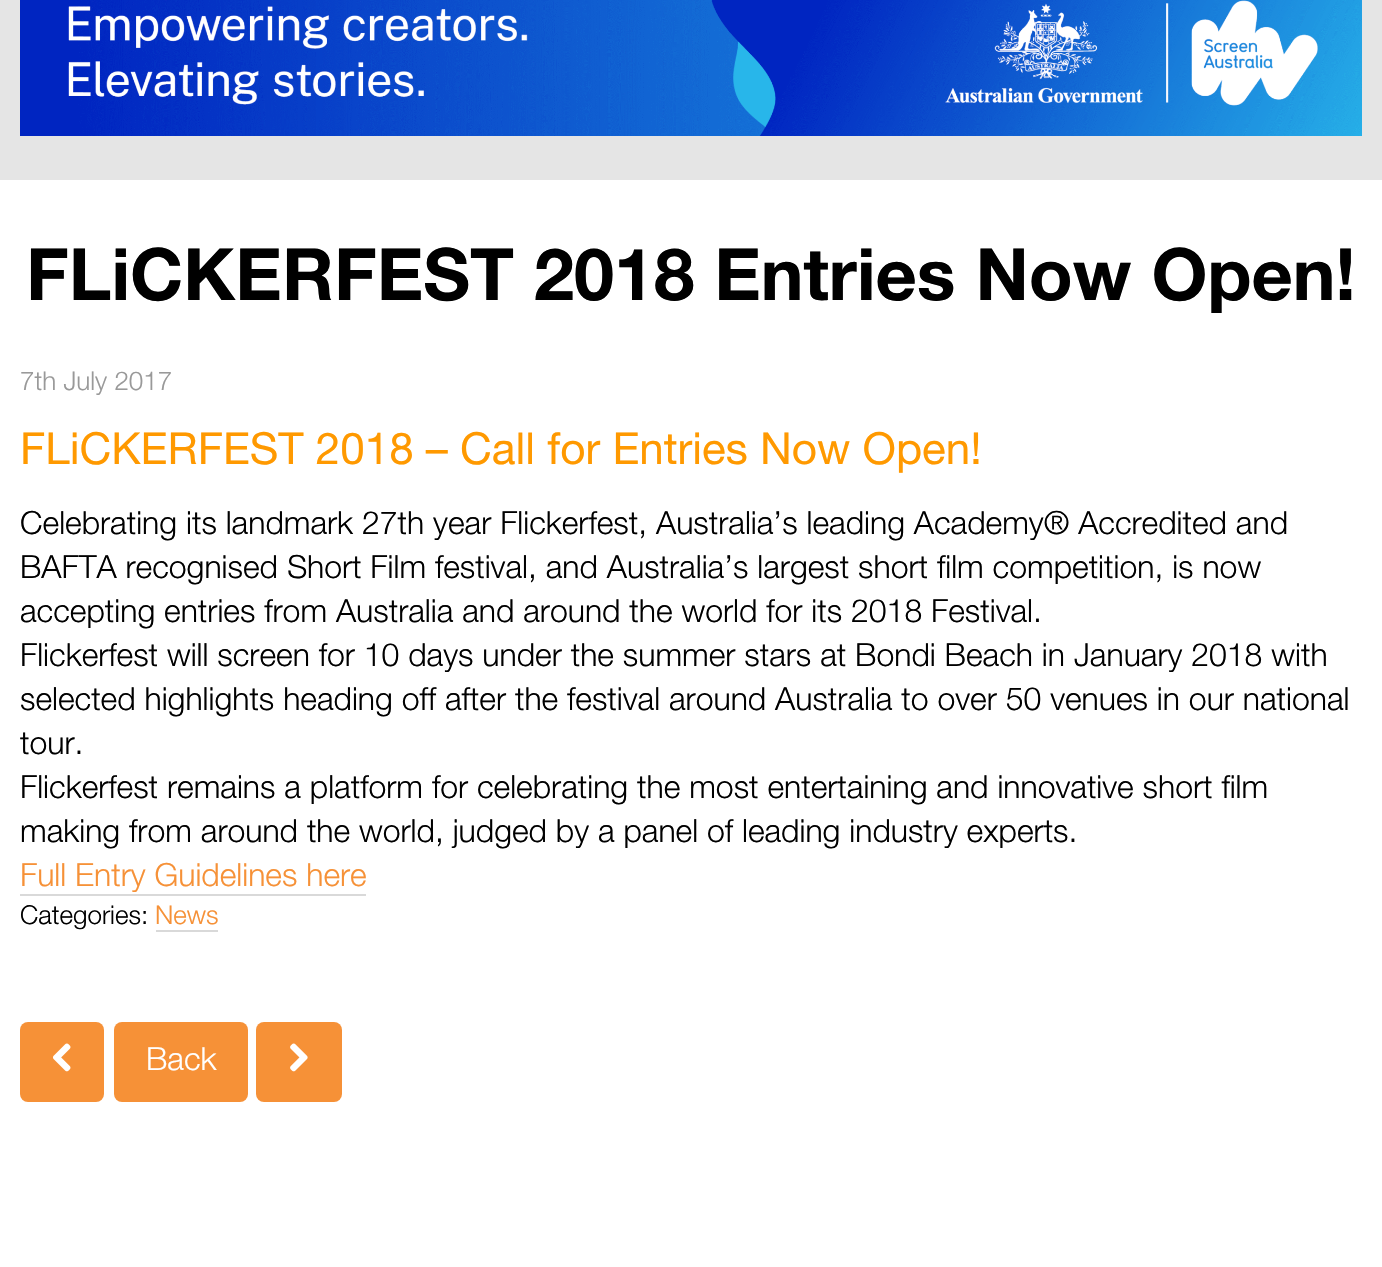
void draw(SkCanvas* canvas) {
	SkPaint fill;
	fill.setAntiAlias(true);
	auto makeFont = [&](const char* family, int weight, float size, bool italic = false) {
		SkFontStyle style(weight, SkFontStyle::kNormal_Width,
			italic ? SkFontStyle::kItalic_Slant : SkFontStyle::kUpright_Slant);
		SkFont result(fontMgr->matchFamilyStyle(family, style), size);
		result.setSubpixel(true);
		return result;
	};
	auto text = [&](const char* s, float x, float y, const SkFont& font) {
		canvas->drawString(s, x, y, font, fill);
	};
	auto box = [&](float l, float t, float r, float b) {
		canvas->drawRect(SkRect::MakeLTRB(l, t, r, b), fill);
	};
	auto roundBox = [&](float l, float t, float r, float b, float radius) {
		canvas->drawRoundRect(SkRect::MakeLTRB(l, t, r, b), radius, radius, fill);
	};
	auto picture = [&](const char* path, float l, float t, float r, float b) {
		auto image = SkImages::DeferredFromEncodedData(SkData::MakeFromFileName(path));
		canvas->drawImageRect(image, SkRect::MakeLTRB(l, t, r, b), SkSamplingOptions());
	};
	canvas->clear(0xFFFFFFFF);
	fill.setColor(0xFFE5E5E5);
	box(0, 0, 1382, 180);
	picture("image0.png", 20, 0, 1362, 136);
	fill.setColor(0xFFD9D9D9);
	box(20, 894, 366, 896);
	box(156, 930, 218, 932);
	fill.setColor(0xFFF69137);
	roundBox(20, 1022, 104, 1102, 8);
	picture("image1.png", 53, 1043, 71, 1072);
	roundBox(114, 1022, 248, 1102, 8);
	roundBox(256, 1022, 342, 1102, 8);
	picture("image2.png", 290, 1043, 308, 1072);
	auto font1 = makeFont("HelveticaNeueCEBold", 700, 72);
	fill.setColor(0xFF000000);
	text("FLiCKERFEST 2018 Entries Now Open!", 26, 300, font1);
	auto font2 = makeFont("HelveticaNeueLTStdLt", 300, 26);
	fill.setColor(0xFF999999);
	text("7th July 2017", 20, 390, font2);
	auto font3 = makeFont("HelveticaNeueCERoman", 400, 44);
	fill.setColor(0xFFFF9900);
	text("FLiCKERFEST 2018 – Call for Entries Now Open!", 20, 464, font3);
	auto font4 = makeFont("HelveticaNeueLTStdLt", 300, 32);
	fill.setColor(0xFF000000);
	text("Celebrating its landmark 27th year Flickerfest, Australia’s leading Academy® Accredited and", 20, 534, font4);
	text("BAFTA recognised Short Film festival, and Australia’s largest short film competition, is now", 20, 578, font4);
	text("accepting entries from Australia and around the world for its 2018 Festival.", 20, 622, font4);
	text("Flickerfest will screen for 10 days under the summer stars at Bondi Beach in January 2018 with", 20, 666, font4);
	text("selected highlights heading off after the festival around Australia to over 50 venues in our national", 20, 710, font4);
	text("tour.", 20, 754, font4);
	text("Flickerfest remains a platform for celebrating the most entertaining and innovative short film", 20, 798, font4);
	text("making from around the world, judged by a panel of leading industry experts.", 20, 842, font4);
	fill.setColor(0xFFF69137);
	text("Full Entry Guidelines here", 20, 886, font4);
	fill.setColor(0xFF000000);
	text("Categories:", 20, 924, font2);
	fill.setColor(0xFFF69137);
	text("News", 155, 924, font2);
	fill.setColor(0xFFFFFFFF);
	text("Back", 146, 1070, font4);
}
